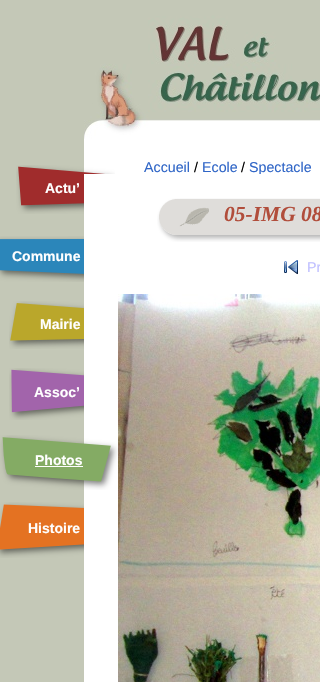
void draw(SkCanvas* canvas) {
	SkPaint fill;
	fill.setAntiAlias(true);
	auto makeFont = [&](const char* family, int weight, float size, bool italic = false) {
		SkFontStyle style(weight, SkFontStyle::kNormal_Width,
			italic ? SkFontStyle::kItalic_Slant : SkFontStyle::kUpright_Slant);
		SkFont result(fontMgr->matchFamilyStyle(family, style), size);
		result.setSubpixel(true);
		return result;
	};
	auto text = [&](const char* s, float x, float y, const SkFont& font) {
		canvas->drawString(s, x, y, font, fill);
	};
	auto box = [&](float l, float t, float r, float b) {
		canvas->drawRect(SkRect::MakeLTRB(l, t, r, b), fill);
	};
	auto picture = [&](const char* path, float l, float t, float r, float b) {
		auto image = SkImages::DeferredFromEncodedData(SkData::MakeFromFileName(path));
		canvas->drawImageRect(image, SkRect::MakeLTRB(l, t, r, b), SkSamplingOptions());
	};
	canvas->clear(0xFFC4C8B7);
	fill.setColor(0xFFFFFFFF);
	box(84, 139, 320, 174);
	picture("image0.png", 84, 0, 320, 139);
	picture("image1.png", 16, 165, 115, 214);
	picture("image2.png", 0, 236, 84, 282);
	picture("image3.png", 9, 301, 84, 349);
	picture("image4.png", 9, 368, 84, 420);
	picture("image6.png", 0, 502, 84, 558);
	auto font1 = makeFont("Liberation Sans", 400, 14.25f);
	fill.setColor(0xFF3066C7);
	text("Accueil", 144, 172, font1);
	fill.setColor(0xFF000000);
	text("/", 194, 172, font1);
	fill.setColor(0xFF3066C7);
	text("Ecole", 202, 172, font1);
	fill.setColor(0xFF000000);
	text("/", 241, 172, font1);
	fill.setColor(0xFF3066C7);
	text("Spectacle", 249, 172, font1);
	auto font2 = makeFont("Liberation Sans", 700, 14);
	fill.setColor(0xFFFFFFFF);
	text("Actu’", 45, 193, font2);
	text("Commune", 12, 261, font2);
	text("Mairie", 40, 329, font2);
	text("Assoc’", 34, 397, font2);
	text("Histoire", 28, 533, font2);
	box(84, 174, 320, 682);
	picture("image5.png", 0, 435, 118, 490);
	text("Photos", 35, 465, font2);
	box(35, 466, 83, 467);
	picture("image7.png", 157, 198, 320, 242);
	auto font3 = makeFont("Liberation Serif", 700, 21.5f, true);
	fill.setColor(0xFFB14D3B);
	text("05-IMG 08", 224, 221, font3);
	picture("image8.png", 284, 260, 298, 275);
	fill.setColor(0xFFC0C0FF);
	text("Pr", 307, 272, font1);
	picture("image9.png", 118, 294, 320, 682);
}
